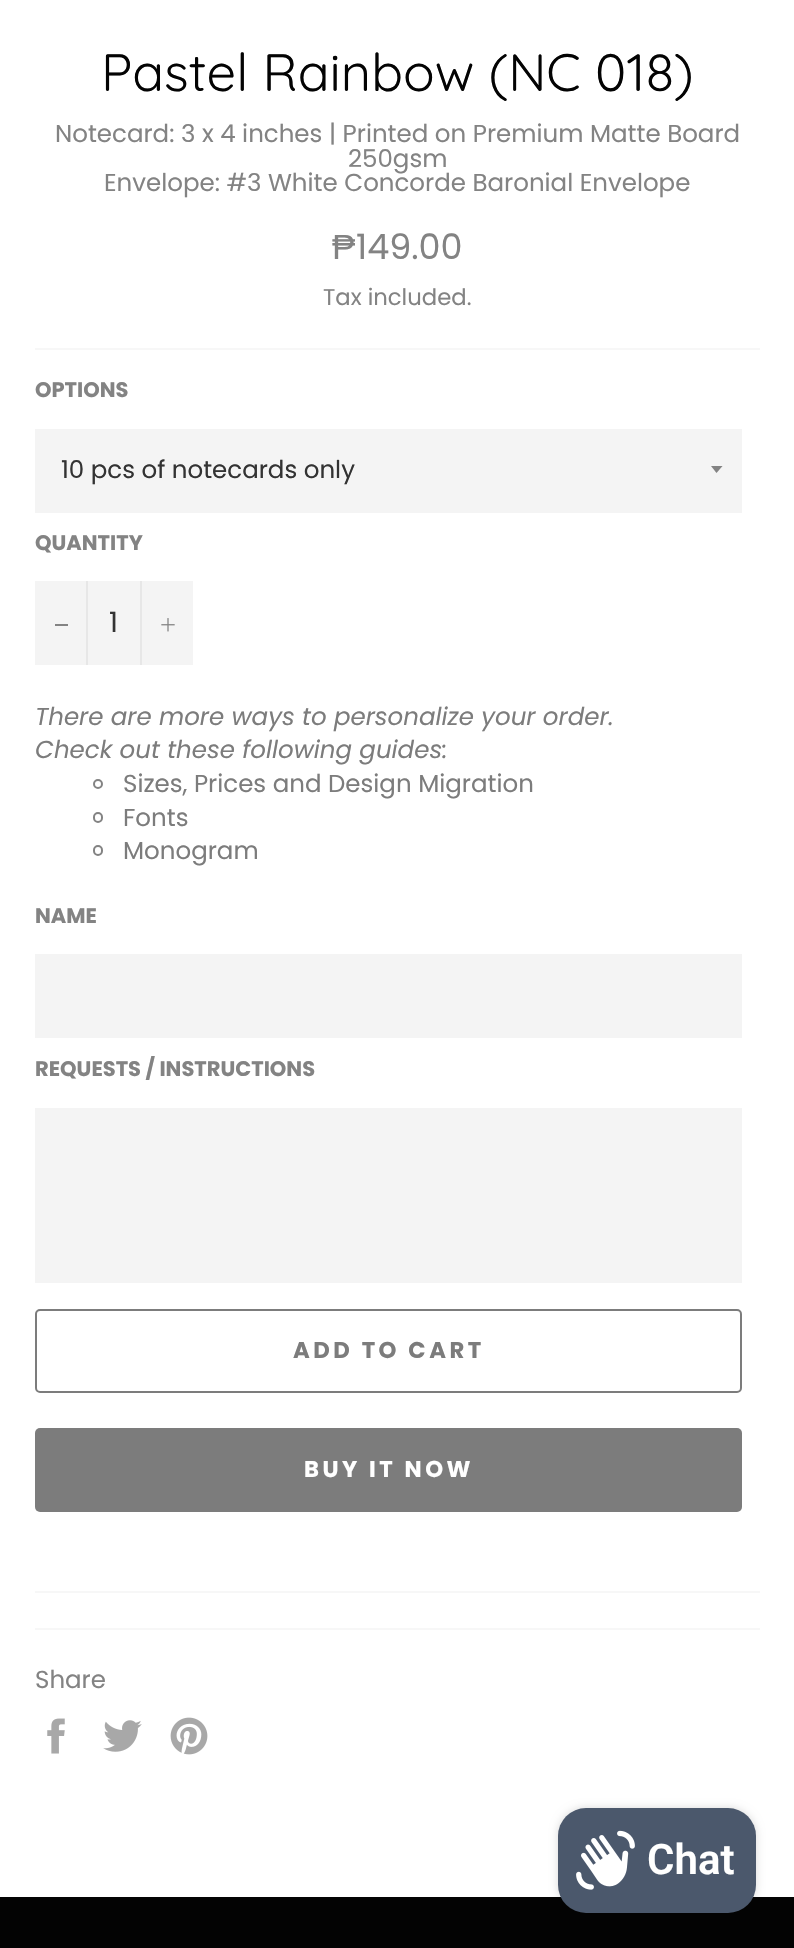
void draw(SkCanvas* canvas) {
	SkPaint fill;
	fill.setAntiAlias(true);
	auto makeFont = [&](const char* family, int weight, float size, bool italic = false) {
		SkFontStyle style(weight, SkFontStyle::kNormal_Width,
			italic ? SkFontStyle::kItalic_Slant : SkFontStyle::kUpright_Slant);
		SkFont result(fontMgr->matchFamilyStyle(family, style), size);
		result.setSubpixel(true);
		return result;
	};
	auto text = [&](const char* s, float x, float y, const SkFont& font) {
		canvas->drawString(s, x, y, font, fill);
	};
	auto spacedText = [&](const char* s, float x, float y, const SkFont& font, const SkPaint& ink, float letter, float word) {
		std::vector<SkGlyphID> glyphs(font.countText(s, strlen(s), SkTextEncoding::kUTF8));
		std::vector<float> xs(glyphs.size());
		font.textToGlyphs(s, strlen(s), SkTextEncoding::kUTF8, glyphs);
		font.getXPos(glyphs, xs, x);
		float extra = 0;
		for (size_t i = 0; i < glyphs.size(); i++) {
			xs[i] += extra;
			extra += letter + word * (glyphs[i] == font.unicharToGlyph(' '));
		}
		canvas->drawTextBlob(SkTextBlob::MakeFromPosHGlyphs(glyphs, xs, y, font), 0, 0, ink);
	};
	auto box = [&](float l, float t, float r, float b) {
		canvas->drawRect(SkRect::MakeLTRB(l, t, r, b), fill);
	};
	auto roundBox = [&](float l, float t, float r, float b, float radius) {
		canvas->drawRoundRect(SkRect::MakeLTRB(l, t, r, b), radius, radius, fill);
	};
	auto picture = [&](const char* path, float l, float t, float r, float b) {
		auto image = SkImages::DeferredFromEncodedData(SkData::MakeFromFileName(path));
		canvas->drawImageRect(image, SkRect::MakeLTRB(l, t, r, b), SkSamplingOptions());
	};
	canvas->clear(0xFFFFFFFF);
	fill.setColor(0xFFF7F7F7);
	box(35, 348, 760, 350);
	fill.setColor(0xFFF4F4F4);
	box(35, 429, 742, 513);
	canvas->save();
	canvas->clipRect(SkRect::MakeLTRB(711, 466, 725, 474));
	fill.setColor(0xFF838383);
	canvas->drawPath(SkPathBuilder().moveTo(710.5f, 465.5f).lineTo(716.5f, 473).lineTo(723, 465.5f).close().detach(), fill);
	canvas->restore();
	fill.setColor(0xFFF4F4F4);
	box(35, 581, 193, 665);
	fill.setColor(0xFFE7E7E7);
	box(86, 581, 88, 665);
	fill.setColor(0xFF838383);
	box(55, 624, 68, 626);
	fill.setColor(0xFFE7E7E7);
	box(140, 581, 142, 665);
	picture("image0.png", 161, 618, 175, 632);
	fill.setStyle(SkPaint::kStroke_Style);
	fill.setStrokeWidth(2);
	fill.setColor(0xFF838383);
	canvas->drawCircle(98, 784, 4, fill);
	canvas->drawRoundRect(SkRect::MakeLTRB(94, 813, 102, 822), 4, 4, fill);
	canvas->drawRoundRect(SkRect::MakeLTRB(94, 846, 102, 855), 4, 4, fill);
	fill.setStyle(SkPaint::kFill_Style);
	fill.setColor(0xFFF4F4F4);
	box(35, 954, 742, 1038);
	box(35, 1108, 742, 1283);
	fill.setStyle(SkPaint::kStroke_Style);
	fill.setColor(0xFF7C7C7C);
	canvas->drawRoundRect(SkRect::MakeLTRB(36, 1310, 741, 1392), 4, 4, fill);
	fill.setStyle(SkPaint::kFill_Style);
	roundBox(35, 1428, 742, 1512, 5);
	fill.setColor(0xFFF7F7F7);
	box(35, 1591, 760, 1593);
	box(35, 1628, 760, 1630);
	picture("image1.png", 47, 1718, 65, 1754);
	picture("image2.png", 103, 1720, 142, 1752);
	picture("image3.png", 170, 1717, 208, 1755);
	fill.setColor(0xFF030303);
	box(0, 1897, 794, 1948);
	fill.setColor(0x26000000);
	fill.setMaskFilter(SkMaskFilter::MakeBlur(kNormal_SkBlurStyle, 4.5f));
	canvas->drawRoundRect(SkRect::MakeLTRB(558, 1808, 756, 1913), 28, 28, fill);
	fill.setMaskFilter(nullptr);
	fill.setColor(0xFF4B586C);
	roundBox(558, 1808, 756, 1913, 28);
	picture("image4.png", 576, 1830, 635, 1890);
	auto font1 = makeFont("Quicksand", 400, 52.5f);
	fill.setColor(0xFF030303);
	text("Pastel Rainbow (NC 018)", 101, 91, font1);
	auto font2 = makeFont("Poppins", 400, 24.5f);
	fill.setColor(0xFF838383);
	text("Notecard: 3 x 4 inches | Printed on Premium Matte Board", 55, 142, font2);
	text("250gsm", 348, 167, font2);
	text("Envelope: #3 White Concorde Baronial Envelope", 104, 191, font2);
	auto font3 = makeFont("Liberation Sans", 400, 35);
	text("₱", 332, 259, font3);
	auto font4 = makeFont("Poppins", 400, 35);
	text("149.00", 356, 259, font4);
	auto font5 = makeFont("Poppins", 400, 22.75f);
	text("Tax included.", 323, 305, font5);
	auto font6 = makeFont("Poppins", 700, 21);
	text("OPTIONS", 35, 397, font6);
	fill.setColor(0xFF333333);
	text("10 pcs of notecards only", 61, 478, font2);
	fill.setColor(0xFF838383);
	text("QUANTITY", 35, 550, font6);
	auto font7 = makeFont("Poppins", 400, 28);
	fill.setColor(0xFF333333);
	text("1", 109, 632, font7);
	auto font8 = makeFont("Poppins", 400, 24.5f, true);
	fill.setColor(0xFF7C7C7C);
	text("There are more ways to personalize your order.", 35, 725, font8);
	text("Check out these following guides:", 35, 758, font8);
	text("Sizes, Prices and Design Migration", 123, 792, font2);
	text("Fonts", 123, 826, font2);
	text("Monogram", 123, 859, font2);
	fill.setColor(0xFF838383);
	text("NAME", 35, 923, font6);
	text("REQUESTS / INSTRUCTIONS", 35, 1076, font6);
	auto font9 = makeFont("Poppins", 700, 22.75f);
	fill.setColor(0xFF7C7C7C);
	spacedText("ADD TO CART", 293, 1358, font9, fill, 3.5f, 0);
	fill.setColor(0xFFFFFFFF);
	spacedText("BUY IT NOW", 304, 1477, font9, fill, 3.5f, 0);
	fill.setColor(0xFF838383);
	text("Share", 35, 1688, font2);
	auto font10 = makeFont("Roboto", 600, 42);
	fill.setColor(0xFFFFFFFF);
	text("Chat", 647, 1874, font10);
}
